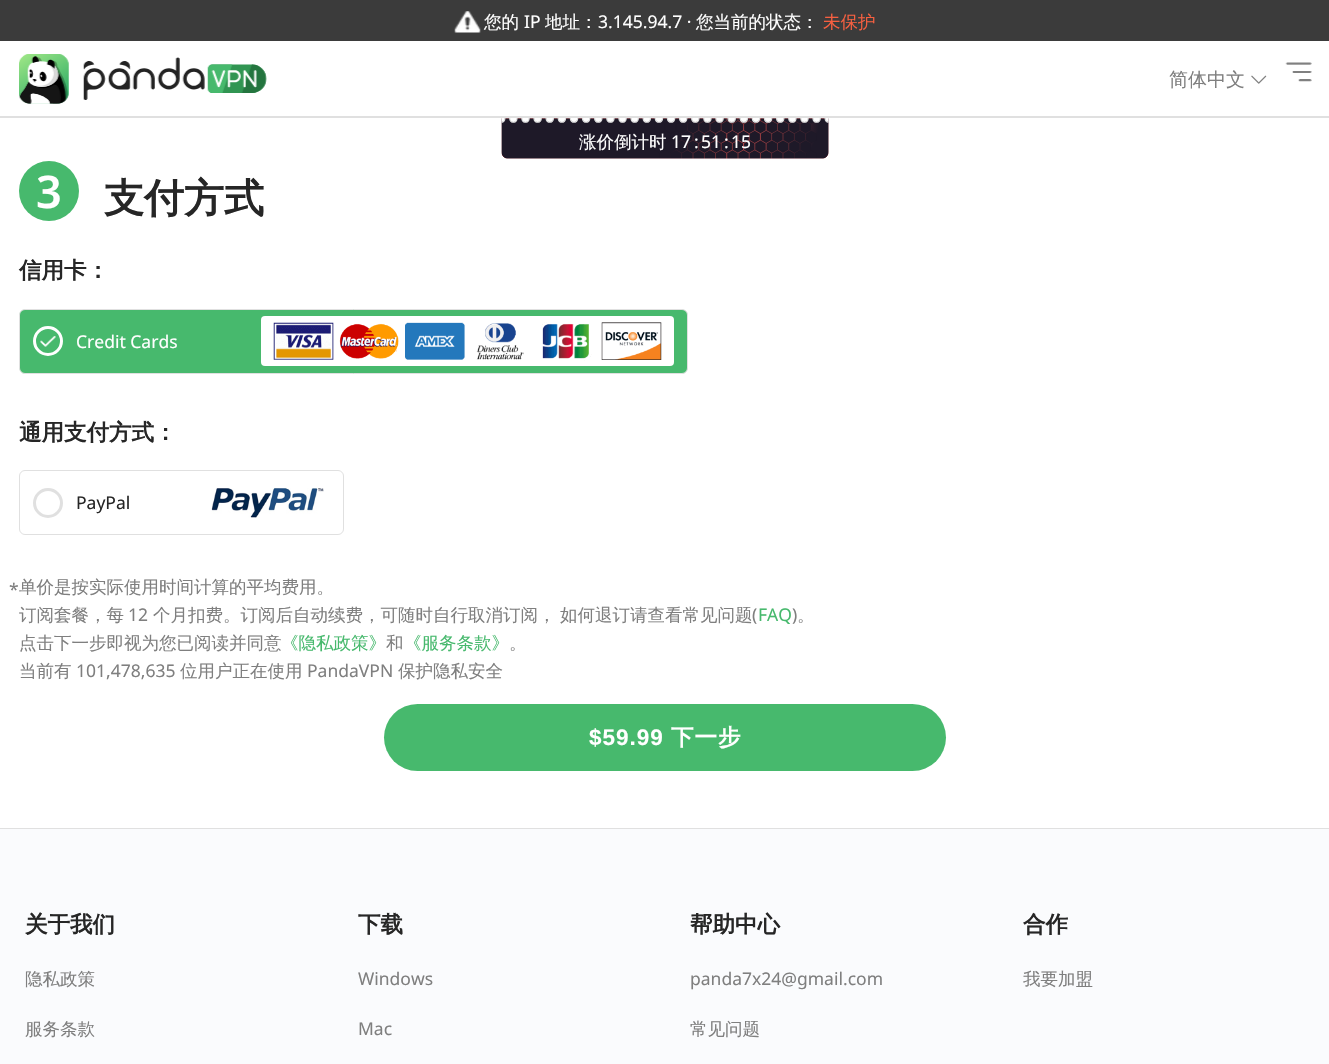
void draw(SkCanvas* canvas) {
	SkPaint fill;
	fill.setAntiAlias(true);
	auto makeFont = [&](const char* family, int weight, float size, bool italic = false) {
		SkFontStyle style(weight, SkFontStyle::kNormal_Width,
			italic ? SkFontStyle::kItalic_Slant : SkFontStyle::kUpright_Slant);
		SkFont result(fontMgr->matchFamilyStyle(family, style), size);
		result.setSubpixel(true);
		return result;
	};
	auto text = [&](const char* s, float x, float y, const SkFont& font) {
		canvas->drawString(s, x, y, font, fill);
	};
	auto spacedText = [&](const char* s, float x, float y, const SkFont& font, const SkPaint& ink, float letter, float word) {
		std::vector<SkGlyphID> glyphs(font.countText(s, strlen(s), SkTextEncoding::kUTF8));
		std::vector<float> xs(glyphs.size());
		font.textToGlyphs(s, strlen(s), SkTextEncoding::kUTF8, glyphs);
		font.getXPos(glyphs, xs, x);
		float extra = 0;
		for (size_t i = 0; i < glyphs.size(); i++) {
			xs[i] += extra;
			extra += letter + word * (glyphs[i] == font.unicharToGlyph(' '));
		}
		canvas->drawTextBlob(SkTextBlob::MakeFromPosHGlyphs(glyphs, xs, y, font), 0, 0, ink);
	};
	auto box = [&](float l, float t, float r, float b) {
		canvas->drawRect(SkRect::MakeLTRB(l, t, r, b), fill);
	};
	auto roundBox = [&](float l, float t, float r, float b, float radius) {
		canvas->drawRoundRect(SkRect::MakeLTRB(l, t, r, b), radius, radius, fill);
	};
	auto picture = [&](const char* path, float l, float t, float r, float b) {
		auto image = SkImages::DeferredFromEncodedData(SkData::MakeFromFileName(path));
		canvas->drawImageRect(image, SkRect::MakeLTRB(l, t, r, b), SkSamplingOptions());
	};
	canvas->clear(0xFFFFFFFF);
	fill.setColor(0xFF3B3B3B);
	box(0, 0, 1329, 41);
	picture("image0.png", 454, 11, 481, 33);
	fill.setColor(0xFFE0E0E0);
	box(0, 116, 1329, 118);
	picture("image1.png", 19, 54, 267, 104);
	picture("image2.png", 1251, 75, 1267, 84);
	picture("image3.png", 1285, 62, 1312, 82);
	picture("image4.png", 501, 118, 829, 159);
	fill.setColor(0xFF47B96D);
	canvas->drawCircle(49, 191, 30, fill);
	canvas->drawRoundRect(SkRect::MakeLTRB(19.5f, 309.5f, 687.5f, 373.5f), 5.5f, 5.5f, fill);
	fill.setStyle(SkPaint::kStroke_Style);
	fill.setStrokeWidth(1);
	fill.setColor(0xFFE0E0E0);
	canvas->drawRoundRect(SkRect::MakeLTRB(19.5f, 309.5f, 687.5f, 373.5f), 5.5f, 5.5f, fill);
	picture("image5.png", 40, 336, 56, 347);
	fill.setStrokeWidth(3);
	fill.setColor(0xFFFFFFFF);
	canvas->drawCircle(48, 341, 13.5f, fill);
	fill.setStyle(SkPaint::kFill_Style);
	roundBox(261, 316, 674, 366, 4);
	picture("image6.png", 273, 322, 662, 361);
	fill.setStyle(SkPaint::kStroke_Style);
	fill.setStrokeWidth(1);
	fill.setColor(0xFFE0E0E0);
	canvas->drawRoundRect(SkRect::MakeLTRB(19.5f, 470.5f, 343.5f, 534.5f), 5.5f, 5.5f, fill);
	fill.setStrokeWidth(3);
	canvas->drawCircle(48, 503, 13.5f, fill);
	picture("image7.png", 211, 488, 324, 518);
	fill.setStyle(SkPaint::kFill_Style);
	fill.setColor(0xFF47B96D);
	roundBox(384, 704, 946, 771, 33.5f);
	fill.setColor(0xFFFAFBFD);
	box(0, 829, 1329, 1064);
	fill.setColor(0xFFE0E0E0);
	box(0, 828, 1329, 829);
	auto font1 = makeFont("WenQuanYi Zen Hei", 500, 17.5f);
	fill.setColor(0xFFFFFFFF);
	text("您的", 484, 28, font1);
	auto font2 = makeFont("Noto Sans", 400, 17.5f);
	text("IP", 524, 28, font2);
	text("地址：", 545, 28, font1);
	text("3.145.94.7 ·", 598, 28, font2);
	text("您当前的状态：", 696, 28, font1);
	fill.setColor(0xFFF55F40);
	text("未保护", 823, 28, font1);
	auto font3 = makeFont("WenQuanYi Zen Hei", 500, 19);
	fill.setColor(0xFF7F7F7F);
	text("简体中文", 1169, 86, font3);
	fill.setColor(0xFFFFFFFF);
	text("涨价倒计时", 579, 148, font1);
	text("17", 671, 148, font2);
	text(":", 694, 148, font2);
	text("51", 701, 148, font2);
	text(":", 724, 148, font2);
	text("15", 731, 148, font2);
	auto font4 = makeFont("Noto Sans", 600, 45);
	text("3", 36, 208, font4);
	auto font5 = makeFont("WenQuanYi Zen Hei", 700, 40);
	fill.setColor(0xFF262626);
	text("支付方式", 104, 212, font5);
	auto font6 = makeFont("WenQuanYi Zen Hei", 700, 22.5f);
	text("信用卡：", 19, 278, font6);
	fill.setColor(0xFFFFFFFF);
	text("Credit Cards", 76, 348, font2);
	fill.setColor(0xFF262626);
	text("通用支付方式：", 19, 440, font6);
	text("PayPal", 76, 509, font2);
	fill.setColor(0xFF7F7F7F);
	text("*", 9, 596, font2);
	text("单价是按实际使用时间计算的平均费用。", 19, 593, font1);
	text("订阅套餐，每", 19, 621, font1);
	text("12", 128, 621, font2);
	text("个月扣费。订阅后自动续费，可随时自行取消订阅，", 153, 621, font1);
	text("如何退订请查看常见问题", 560, 621, font1);
	text("(", 752, 621, font2);
	fill.setColor(0xFF47B96D);
	text("FAQ", 758, 621, font2);
	fill.setColor(0xFF7F7F7F);
	text(")", 792, 621, font2);
	text("。", 797, 621, font1);
	text("点击下一步即视为您已阅读并同意", 19, 649, font1);
	fill.setColor(0xFF47B96D);
	text("《隐私政策》", 281, 649, font1);
	fill.setColor(0xFF7F7F7F);
	text("和", 386, 649, font1);
	fill.setColor(0xFF47B96D);
	text("《服务条款》", 404, 649, font1);
	fill.setColor(0xFF7F7F7F);
	text("。", 509, 649, font1);
	text("当前有", 19, 677, font1);
	text("101,478,635", 76, 677, font2);
	text("位用户正在使用", 180, 677, font1);
	text("PandaVPN", 307, 677, font2);
	text("保护隐私安全", 398, 677, font1);
	auto font7 = makeFont("Liberation Sans", 700, 22.5f);
	fill.setColor(0xFFFFFFFF);
	spacedText("$59.99", 589, 745, font7, fill, 1, 0);
	spacedText("下一步", 671, 745, font6, fill, 1, 0);
	fill.setColor(0xFF262626);
	text("关于我们", 25, 932, font6);
	fill.setColor(0xFF7F7F7F);
	text("隐私政策", 25, 985, font1);
	text("服务条款", 25, 1035, font1);
	fill.setColor(0xFF262626);
	text("下载", 358, 932, font6);
	fill.setColor(0xFF7F7F7F);
	text("Windows", 358, 985, font2);
	text("Mac", 358, 1035, font2);
	fill.setColor(0xFF262626);
	text("帮助中心", 690, 932, font6);
	fill.setColor(0xFF7F7F7F);
	text("panda7x24@gmail.com", 690, 985, font2);
	text("常见问题", 690, 1035, font1);
	fill.setColor(0xFF262626);
	text("合作", 1023, 932, font6);
	fill.setColor(0xFF7F7F7F);
	text("我要加盟", 1023, 985, font1);
}
